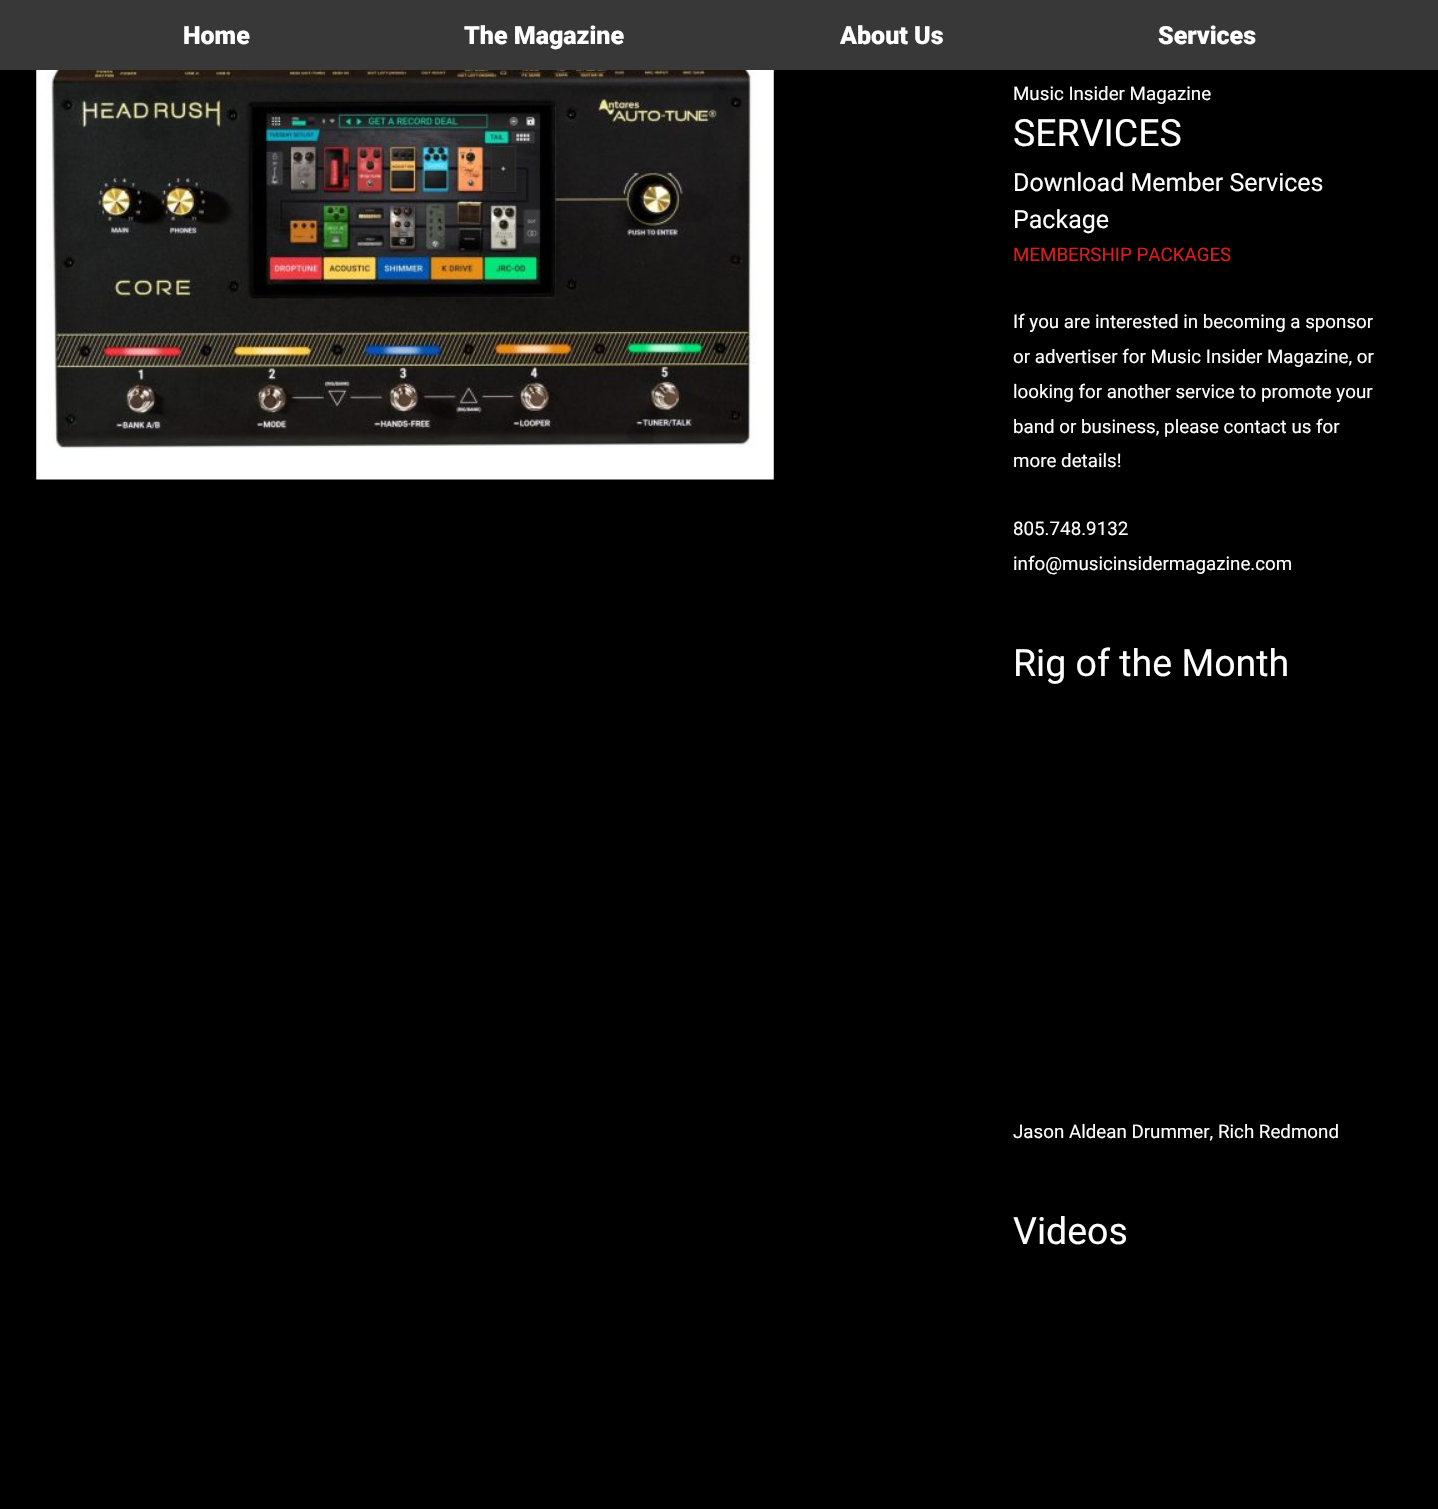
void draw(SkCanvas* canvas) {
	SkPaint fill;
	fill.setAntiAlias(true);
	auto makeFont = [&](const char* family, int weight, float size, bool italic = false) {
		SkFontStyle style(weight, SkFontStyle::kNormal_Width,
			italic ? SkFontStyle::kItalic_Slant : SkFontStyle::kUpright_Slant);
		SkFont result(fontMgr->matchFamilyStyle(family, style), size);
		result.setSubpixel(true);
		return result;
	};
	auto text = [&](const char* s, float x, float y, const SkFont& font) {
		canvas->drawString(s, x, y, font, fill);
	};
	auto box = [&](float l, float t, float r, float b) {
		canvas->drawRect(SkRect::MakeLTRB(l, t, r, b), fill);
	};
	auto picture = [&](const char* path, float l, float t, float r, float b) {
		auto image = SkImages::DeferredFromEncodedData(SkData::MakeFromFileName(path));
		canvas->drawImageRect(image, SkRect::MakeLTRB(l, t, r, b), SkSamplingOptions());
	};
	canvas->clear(0xFF000000);
	fill.setColor(0xFF383838);
	box(0, 0, 1438, 70);
	picture("image0.png", 36, 70, 774, 480);
	auto font1 = makeFont("Roboto", 900, 25);
	fill.setColor(0xFFFFFFFF);
	text("Home", 183, 44, font1);
	text("The Magazine", 464, 44, font1);
	text("About Us", 840, 44, font1);
	text("Services", 1158, 44, font1);
	auto font2 = makeFont("Roboto", 400, 18.75f);
	text("Music Insider Magazine", 1013, 100, font2);
	auto font3 = makeFont("Roboto", 400, 37.5f);
	text("SERVICES", 1013, 146, font3);
	auto font4 = makeFont("Roboto", 400, 25);
	text("Download Member Services", 1013, 191, font4);
	text("Package", 1013, 228, font4);
	fill.setColor(0xFFDA1C1C);
	text("MEMBERSHIP PACKAGES", 1013, 261, font2);
	fill.setColor(0xFFFFFFFF);
	text("If you are interested in becoming a sponsor", 1013, 328, font2);
	text("or advertiser for Music Insider Magazine, or", 1013, 363, font2);
	text("looking for another service to promote your", 1013, 398, font2);
	text("band or business, please contact us for", 1013, 433, font2);
	text("more details!", 1013, 467, font2);
	text("805.748.9132", 1013, 535, font2);
	text("info@musicinsidermagazine.com", 1013, 570, font2);
	text("Rig of the Month", 1013, 676, font3);
	text("Jason Aldean Drummer, Rich Redmond", 1013, 1138, font2);
	text("Videos", 1013, 1244, font3);
}
